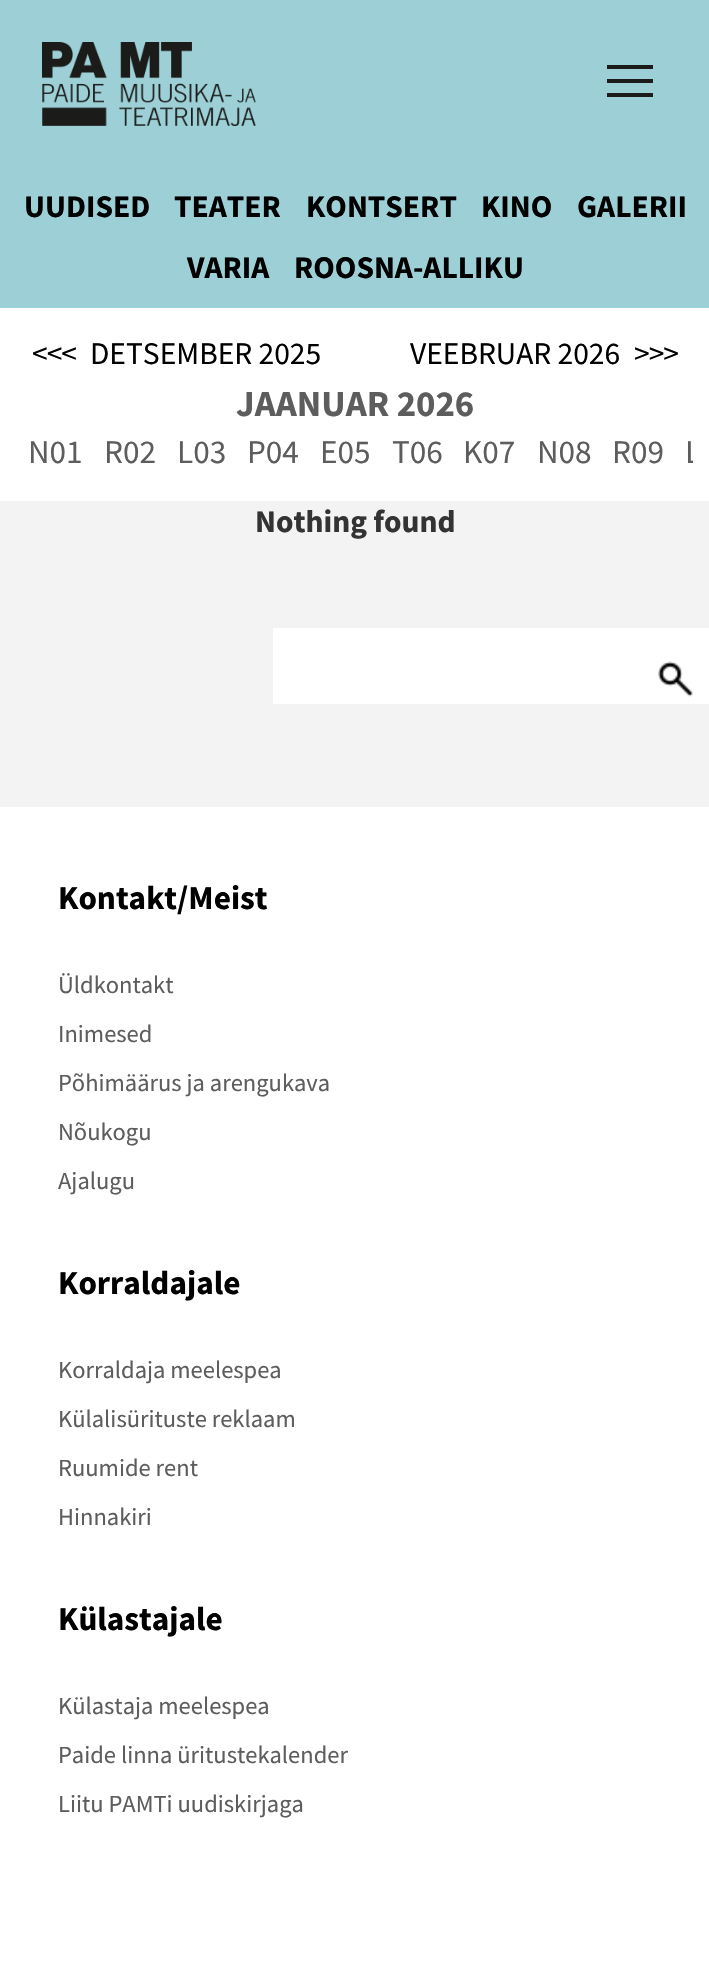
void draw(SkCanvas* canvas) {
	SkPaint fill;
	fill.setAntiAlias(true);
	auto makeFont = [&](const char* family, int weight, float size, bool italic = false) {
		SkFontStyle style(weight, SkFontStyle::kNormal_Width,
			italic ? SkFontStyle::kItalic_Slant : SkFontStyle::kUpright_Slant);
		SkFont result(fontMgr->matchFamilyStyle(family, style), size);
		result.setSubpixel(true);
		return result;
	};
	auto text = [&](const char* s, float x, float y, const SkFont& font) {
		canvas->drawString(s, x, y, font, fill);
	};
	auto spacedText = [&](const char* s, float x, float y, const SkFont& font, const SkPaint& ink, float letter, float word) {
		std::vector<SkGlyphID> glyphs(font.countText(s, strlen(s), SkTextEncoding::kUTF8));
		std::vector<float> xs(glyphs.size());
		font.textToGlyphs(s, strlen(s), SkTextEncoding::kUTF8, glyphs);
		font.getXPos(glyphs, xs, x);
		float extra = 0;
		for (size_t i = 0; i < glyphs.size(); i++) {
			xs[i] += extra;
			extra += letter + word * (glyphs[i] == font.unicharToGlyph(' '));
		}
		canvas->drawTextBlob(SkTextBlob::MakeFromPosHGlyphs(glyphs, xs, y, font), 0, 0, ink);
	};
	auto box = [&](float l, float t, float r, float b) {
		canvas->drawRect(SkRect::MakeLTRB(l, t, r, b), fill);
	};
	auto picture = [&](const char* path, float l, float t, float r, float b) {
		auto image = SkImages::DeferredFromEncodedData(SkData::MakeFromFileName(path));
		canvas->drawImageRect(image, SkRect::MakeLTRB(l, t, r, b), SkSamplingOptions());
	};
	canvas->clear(0xFFF3F3F3);
	fill.setColor(0xFF9CD0D6);
	box(0, 0, 709, 308);
	picture("image0.png", 42, 42, 256, 126);
	fill.setColor(0xFF1B1B1A);
	box(607, 65, 653, 69);
	box(607, 79, 653, 83);
	box(607, 93, 653, 97);
	fill.setColor(0xFFFFFFFF);
	box(0, 308, 709, 501);
	box(273, 628, 709, 704);
	picture("image1.png", 658, 661, 693, 697);
	box(0, 807, 709, 1987);
	auto font1 = makeFont("Source Sans Pro", 700, 31.5f);
	fill.setColor(0xFF000000);
	text("UUDISED", 24, 217, font1);
	text("TEATER", 174, 217, font1);
	text("KONTSERT", 306, 217, font1);
	text("KINO", 481, 217, font1);
	text("GALERII", 577, 217, font1);
	text("VARIA", 187, 278, font1);
	text("ROOSNA-ALLIKU", 294, 278, font1);
	auto font2 = makeFont("Source Sans Pro", 400, 31.5f);
	spacedText("<<<", 32, 364, font2, fill, -1, 0);
	text("DETSEMBER 2025", 90, 364, font2);
	text("VEEBRUAR 2026", 410, 364, font2);
	spacedText(">>>", 634, 364, font2, fill, -1, 0);
	auto font3 = makeFont("Source Sans Pro", 700, 36.75f);
	fill.setColor(0xFF5D5D5D);
	text("JAANUAR 2026", 236, 416, font3);
	auto font4 = makeFont("Source Sans Pro", 400, 33.25f);
	text("N01", 28, 463, font4);
	text("R02", 104, 463, font4);
	text("L03", 177, 463, font4);
	text("P04", 247, 463, font4);
	text("E05", 320, 463, font4);
	text("T06", 392, 463, font4);
	text("K07", 463, 463, font4);
	text("N08", 537, 463, font4);
	text("R09", 612, 463, font4);
	canvas->save();
	canvas->clipRect(SkRect::MakeLTRB(18, 422, 693, 501));
	text("L", 685, 463, font4);
	canvas->restore();
	fill.setColor(0xFF333333);
	text("Nothing found", 255, 532, font1);
	auto font5 = makeFont("Source Sans Pro", 700, 33.25f);
	fill.setColor(0xFF000000);
	text("Kontakt/Meist", 58, 909, font5);
	auto font6 = makeFont("Source Sans Pro", 400, 24.5f);
	fill.setColor(0xFF5D5D5D);
	text("Üldkontakt", 58, 993, font6);
	text("Inimesed", 58, 1042, font6);
	text("Põhimäärus ja arengukava", 58, 1091, font6);
	text("Nõukogu", 58, 1140, font6);
	text("Ajalugu", 58, 1189, font6);
	fill.setColor(0xFF000000);
	text("Korraldajale", 58, 1294, font5);
	fill.setColor(0xFF5D5D5D);
	text("Korraldaja meelespea", 58, 1378, font6);
	text("Külalisürituste reklaam", 58, 1427, font6);
	text("Ruumide rent", 58, 1476, font6);
	text("Hinnakiri", 58, 1525, font6);
	fill.setColor(0xFF000000);
	text("Külastajale", 58, 1630, font5);
	fill.setColor(0xFF5D5D5D);
	text("Külastaja meelespea", 58, 1714, font6);
	text("Paide linna üritustekalender", 58, 1763, font6);
	text("Liitu PAMTi uudiskirjaga", 58, 1812, font6);
}
